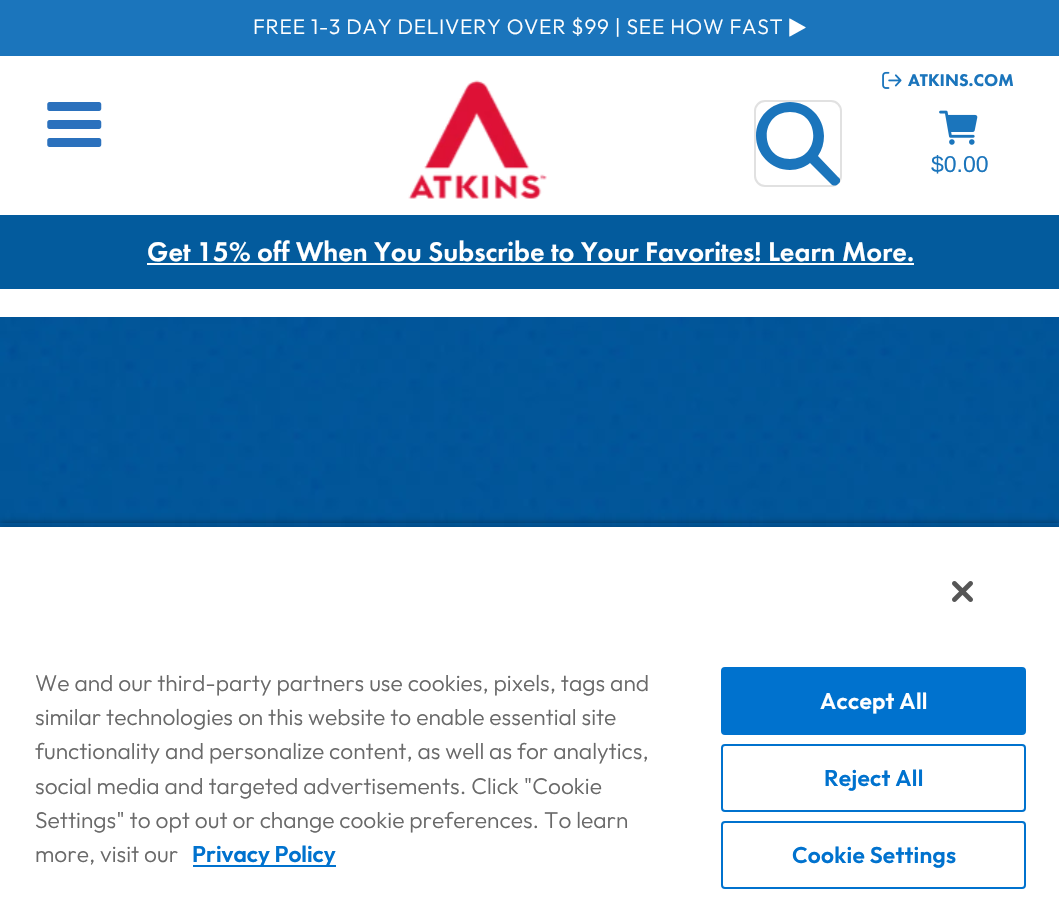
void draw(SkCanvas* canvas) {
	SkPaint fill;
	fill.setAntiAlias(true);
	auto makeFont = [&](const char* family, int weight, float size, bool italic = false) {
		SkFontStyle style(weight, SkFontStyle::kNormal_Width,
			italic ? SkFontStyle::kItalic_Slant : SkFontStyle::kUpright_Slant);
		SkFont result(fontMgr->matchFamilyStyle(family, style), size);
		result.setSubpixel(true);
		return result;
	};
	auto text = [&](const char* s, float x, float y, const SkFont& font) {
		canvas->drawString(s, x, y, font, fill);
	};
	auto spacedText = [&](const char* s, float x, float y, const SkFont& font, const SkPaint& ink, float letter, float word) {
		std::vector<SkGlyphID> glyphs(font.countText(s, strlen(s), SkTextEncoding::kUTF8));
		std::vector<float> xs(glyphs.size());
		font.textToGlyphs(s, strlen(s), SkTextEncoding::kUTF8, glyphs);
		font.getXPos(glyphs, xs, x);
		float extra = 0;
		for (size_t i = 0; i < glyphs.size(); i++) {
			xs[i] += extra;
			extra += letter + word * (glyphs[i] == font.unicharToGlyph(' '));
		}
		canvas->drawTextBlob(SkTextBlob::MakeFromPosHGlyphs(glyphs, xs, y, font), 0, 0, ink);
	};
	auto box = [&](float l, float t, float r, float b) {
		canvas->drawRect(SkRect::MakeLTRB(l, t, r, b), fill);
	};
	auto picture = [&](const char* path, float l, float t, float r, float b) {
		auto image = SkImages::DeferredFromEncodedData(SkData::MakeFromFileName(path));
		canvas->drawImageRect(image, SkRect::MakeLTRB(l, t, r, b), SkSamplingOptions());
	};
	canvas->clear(0xFFFFFFFF);
	fill.setColor(0xFF1B75BC);
	box(0, 0, 1059, 56);
	picture("image0.png", 789, 18, 806, 37);
	picture("image1.png", 408, 80, 547, 199);
	fill.setStyle(SkPaint::kStroke_Style);
	fill.setStrokeWidth(2);
	fill.setColor(0xFFE1E1E1);
	canvas->drawRoundRect(SkRect::MakeLTRB(755, 101, 841, 186), 10, 10, fill);
	canvas->save();
	canvas->clipRect(SkRect::MakeLTRB(756, 102, 840, 186));
	fill.setStyle(SkPaint::kFill_Style);
	fill.setColor(0xFF1B75BC);
	canvas->drawPath(SkPathBuilder().moveTo(824, 136).cubicTo(824, 143, 822, 150, 818, 156).lineTo(838, 177).cubicTo(841, 179, 841, 182, 838, 184).cubicTo(836, 186, 833, 186, 831, 184).lineTo(810, 163).cubicTo(805, 167, 798, 170, 790, 170).cubicTo(771, 170, 756, 154, 756, 136).cubicTo(756, 117, 771, 102, 790, 102).cubicTo(809, 102, 824, 117, 824, 136).close().moveTo(790, 159).cubicTo(821, 159, 821, 112, 790, 112).cubicTo(759, 112, 759, 159, 790, 159).close().detach(), fill);
	canvas->restore();
	picture("image2.png", 882, 71, 902, 89);
	picture("image3.png", 47, 102, 102, 147);
	picture("image4.png", 939, 110, 978, 145);
	fill.setColor(0xFF035B9D);
	box(0, 215, 1059, 289);
	fill.setColor(0xFFFFFFFF);
	box(147, 263, 914, 265);
	picture("image5.png", 0, 317, 1059, 527);
	canvas->save();
	canvas->clipPath(SkPathBuilder(SkPathFillType::kEvenOdd).moveTo(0, 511).lineTo(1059, 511).lineTo(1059, 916).lineTo(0, 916).close().moveTo(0, 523).lineTo(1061, 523).lineTo(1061, 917).lineTo(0, 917).close().detach(), true);
	fill.setColor(0x59000000);
	fill.setMaskFilter(SkMaskFilter::MakeBlur(kNormal_SkBlurStyle, 3.5f));
	canvas->drawRect(SkRect::MakeLTRB(0, 523, 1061, 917), fill);
	fill.setMaskFilter(nullptr);
	canvas->restore();
	fill.setColor(0x33000000);
	fill.setMaskFilter(SkMaskFilter::MakeBlur(kNormal_SkBlurStyle, 3.5f));
	canvas->drawRect(SkRect::MakeLTRB(0, 527, 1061, 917), fill);
	fill.setMaskFilter(nullptr);
	fill.setColor(0xFFFFFFFF);
	box(0, 527, 1059, 916);
	picture("image6.png", 952, 581, 973, 602);
	fill.setColor(0xFF0072CE);
	box(193, 865, 336, 867);
	canvas->drawRoundRect(SkRect::MakeLTRB(722, 668, 1025, 734), 3, 3, fill);
	fill.setStyle(SkPaint::kStroke_Style);
	canvas->drawRoundRect(SkRect::MakeLTRB(722, 668, 1025, 734), 3, 3, fill);
	canvas->drawRoundRect(SkRect::MakeLTRB(722, 745, 1025, 811), 3, 3, fill);
	canvas->drawRoundRect(SkRect::MakeLTRB(722, 822, 1025, 888), 3, 3, fill);
	auto font1 = makeFont("Outfit", 300, 21);
	fill.setStyle(SkPaint::kFill_Style);
	fill.setColor(0xFFFFFFFF);
	spacedText("FREE 1-3 DAY DELIVERY OVER $99 | SEE HOW FAST", 253, 34, font1, fill, 0.7f, 0);
	auto font2 = makeFont("Futura PT", 900, 17.5f);
	fill.setColor(0xFF1B75BC);
	text("ATKINS.COM", 908, 86, font2);
	auto font3 = makeFont("Liberation Sans", 400, 23);
	text("$0.00", 931, 172, font3);
	auto font4 = makeFont("Futura PT", 500, 28);
	fill.setColor(0xFFFFFFFF);
	text("Get 15% off When You Subscribe to Your Favorites! Learn More.", 147, 261, font4);
	auto font5 = makeFont("Outfit", 300, 22.75f);
	fill.setColor(0xFF696969);
	text("We and our third-party partners use cookies, pixels, tags and", 35, 691, font5);
	text("similar technologies on this website to enable essential site", 35, 725, font5);
	text("functionality and personalize content, as well as for analytics,", 35, 759, font5);
	text("social media and targeted advertisements. Click \"Cookie", 35, 794, font5);
	text("Settings\" to opt out or change cookie preferences. To learn", 35, 828, font5);
	text("more, visit our", 35, 862, font5);
	auto font6 = makeFont("Outfit", 600, 22.75f);
	fill.setColor(0xFF0072CE);
	text("Privacy Policy", 192, 862, font6);
	fill.setColor(0xFFFFFFFF);
	spacedText("Accept All", 820, 709, font6, fill, 0.25f, 0);
	fill.setColor(0xFF0072CE);
	spacedText("Reject All", 824, 786, font6, fill, 0.25f, 0);
	spacedText("Cookie Settings", 792, 863, font6, fill, 0.25f, 0);
}
